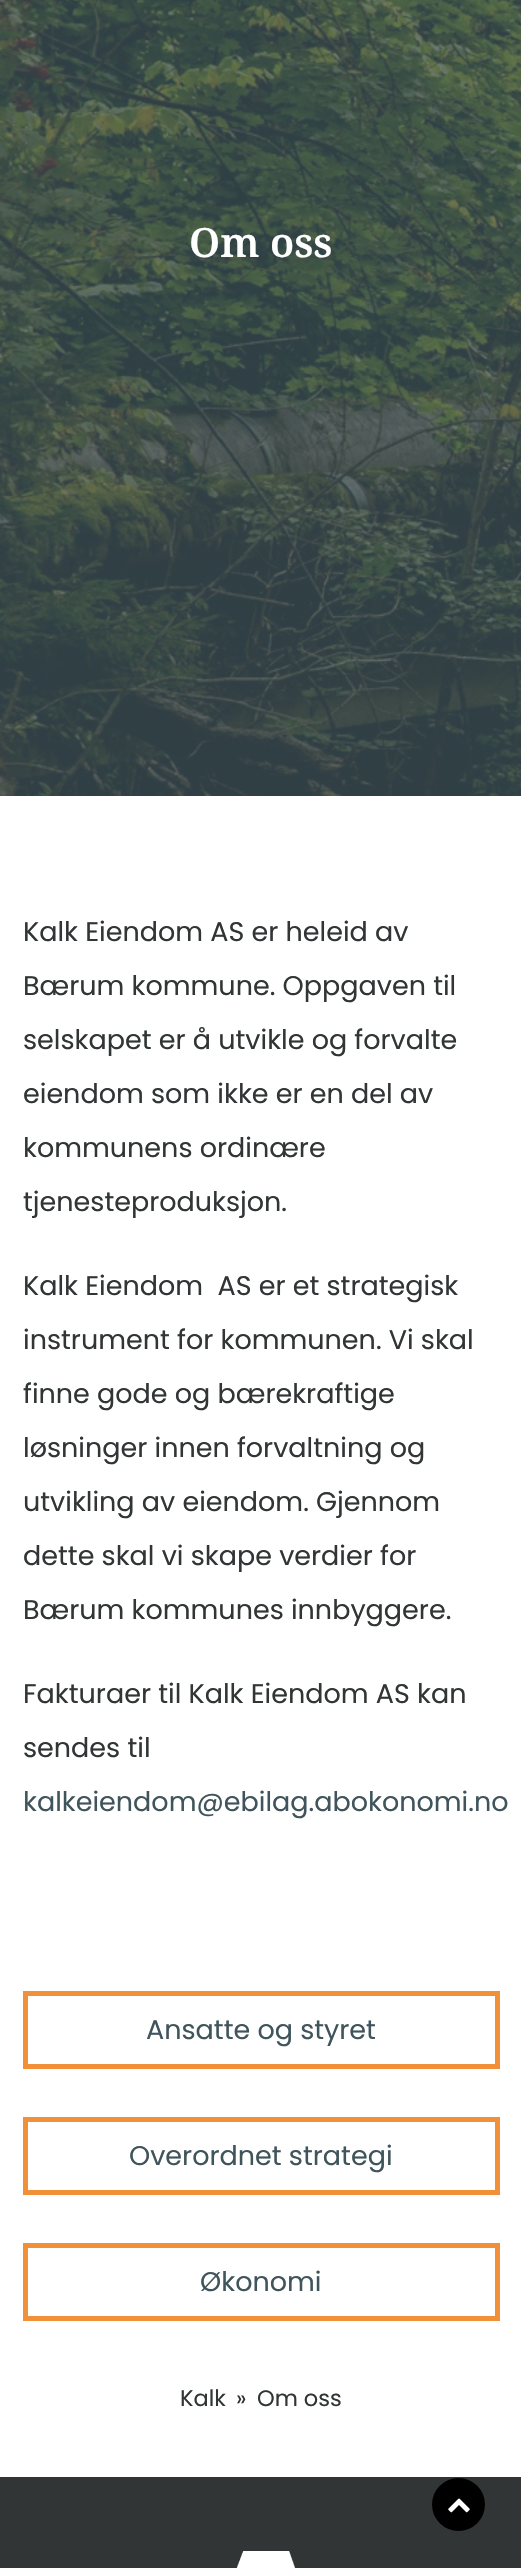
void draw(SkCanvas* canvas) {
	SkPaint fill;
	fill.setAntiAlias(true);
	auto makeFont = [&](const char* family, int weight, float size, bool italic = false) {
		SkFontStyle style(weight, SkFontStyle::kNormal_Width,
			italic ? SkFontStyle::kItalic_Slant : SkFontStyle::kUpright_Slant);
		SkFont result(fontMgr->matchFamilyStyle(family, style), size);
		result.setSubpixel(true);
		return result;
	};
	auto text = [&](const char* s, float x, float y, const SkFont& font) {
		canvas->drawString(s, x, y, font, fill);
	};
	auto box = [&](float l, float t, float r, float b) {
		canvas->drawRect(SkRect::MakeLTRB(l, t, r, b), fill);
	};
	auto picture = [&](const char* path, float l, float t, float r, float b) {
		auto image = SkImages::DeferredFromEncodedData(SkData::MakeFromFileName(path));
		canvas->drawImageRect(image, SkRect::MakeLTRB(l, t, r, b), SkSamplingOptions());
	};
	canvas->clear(0xFFFFFFFF);
	picture("image0.png", 0, 0, 521, 796);
	fill.setStyle(SkPaint::kStroke_Style);
	fill.setStrokeWidth(5);
	fill.setColor(0xFFF28F39);
	canvas->drawRect(SkRect::MakeLTRB(25.5f, 1993.5f, 497.5f, 2066.5f), fill);
	canvas->drawRect(SkRect::MakeLTRB(25.5f, 2119.5f, 497.5f, 2192.5f), fill);
	canvas->drawRect(SkRect::MakeLTRB(25.5f, 2245.5f, 497.5f, 2318.5f), fill);
	fill.setStyle(SkPaint::kFill_Style);
	fill.setColor(0xFF313535);
	box(0, 2477, 521, 2568);
	picture("image1.png", 236, 2551, 296, 2568);
	fill.setColor(0xFF000000);
	canvas->drawCircle(458.5f, 2504.5f, 26.5f, fill);
	picture("image2.png", 448, 2498, 470, 2513);
	auto font1 = makeFont("Noto Serif", 600, 40.5f);
	fill.setColor(0xFFFFFFFF);
	text("Om oss", 189, 257, font1);
	auto font2 = makeFont("Poppins", 400, 27);
	fill.setColor(0xFF313535);
	text("Kalk Eiendom AS er heleid av", 23, 941, font2);
	text("Bærum kommune. Oppgaven til", 23, 995, font2);
	text("selskapet er å utvikle og forvalte", 23, 1049, font2);
	text("eiendom som ikke er en del av", 23, 1103, font2);
	text("kommunens ordinære", 23, 1157, font2);
	text("tjenesteproduksjon.", 23, 1211, font2);
	text("Kalk Eiendom  AS er et strategisk", 23, 1295, font2);
	text("instrument for kommunen. Vi skal", 23, 1349, font2);
	text("finne gode og bærekraftige", 23, 1403, font2);
	text("løsninger innen forvaltning og", 23, 1457, font2);
	text("utvikling av eiendom. Gjennom", 23, 1511, font2);
	text("dette skal vi skape verdier for", 23, 1565, font2);
	text("Bærum kommunes innbyggere.", 23, 1619, font2);
	text("Fakturaer til Kalk Eiendom AS kan", 23, 1703, font2);
	text("sendes til", 23, 1757, font2);
	fill.setColor(0xFF3F545B);
	text("kalkeiendom@ebilag.abokonomi.no", 23, 1811, font2);
	text("Ansatte og styret", 146, 2039, font2);
	text("Overordnet strategi", 129, 2165, font2);
	text("Økonomi", 200, 2291, font2);
	auto font3 = makeFont("Poppins", 400, 22.5f);
	fill.setColor(0xFF313535);
	text("Kalk", 180, 2406, font3);
	text("»", 236, 2406, font3);
	text("Om oss", 257, 2406, font3);
}
